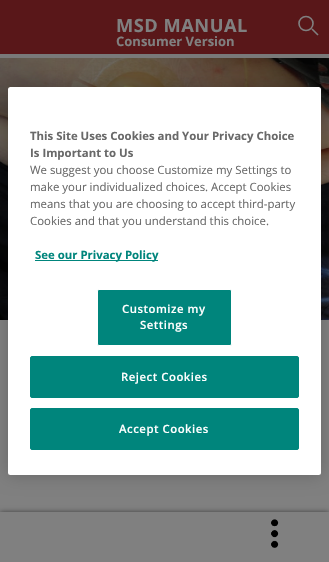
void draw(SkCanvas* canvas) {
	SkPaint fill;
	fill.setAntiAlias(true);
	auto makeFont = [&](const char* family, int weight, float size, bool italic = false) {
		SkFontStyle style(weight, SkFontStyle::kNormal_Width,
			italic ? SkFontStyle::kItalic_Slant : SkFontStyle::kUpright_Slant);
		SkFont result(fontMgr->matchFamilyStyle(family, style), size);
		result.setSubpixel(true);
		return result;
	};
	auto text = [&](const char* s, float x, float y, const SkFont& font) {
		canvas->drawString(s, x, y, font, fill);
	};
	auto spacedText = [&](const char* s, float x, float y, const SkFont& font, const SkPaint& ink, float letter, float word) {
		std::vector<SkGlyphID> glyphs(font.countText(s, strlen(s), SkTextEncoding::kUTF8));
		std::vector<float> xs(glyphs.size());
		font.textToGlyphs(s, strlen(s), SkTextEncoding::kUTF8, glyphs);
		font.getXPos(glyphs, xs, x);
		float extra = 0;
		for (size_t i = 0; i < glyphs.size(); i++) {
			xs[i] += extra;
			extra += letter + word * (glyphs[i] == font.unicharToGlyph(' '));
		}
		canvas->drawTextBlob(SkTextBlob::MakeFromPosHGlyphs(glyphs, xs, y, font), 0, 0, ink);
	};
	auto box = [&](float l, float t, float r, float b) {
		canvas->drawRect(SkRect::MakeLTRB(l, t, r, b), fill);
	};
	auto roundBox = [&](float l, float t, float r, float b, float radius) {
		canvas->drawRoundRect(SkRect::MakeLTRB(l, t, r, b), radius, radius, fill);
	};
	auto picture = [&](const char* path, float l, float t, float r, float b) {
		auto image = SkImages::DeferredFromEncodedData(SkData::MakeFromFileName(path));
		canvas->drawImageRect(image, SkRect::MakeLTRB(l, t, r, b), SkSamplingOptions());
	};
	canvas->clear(0xFF808080);
	fill.setColor(0xFF591719);
	box(0, 0, 329, 54);
	fill.setStyle(SkPaint::kStroke_Style);
	fill.setStrokeWidth(1.6f);
	fill.setColor(0xFF808080);
	canvas->drawCircle(306, 23.5f, 7, fill);
	canvas->drawPath(SkPathBuilder().moveTo(318, 35).lineTo(312, 29).detach(), fill);
	fill.setStyle(SkPaint::kFill_Style);
	fill.setColor(0xFF797979);
	box(0, 54, 329, 58);
	picture("image0.png", 0, 58, 329, 320);
	fill.setColor(0x80000000);
	fill.setMaskFilter(SkMaskFilter::MakeBlur(kNormal_SkBlurStyle, 2.5f));
	canvas->drawRect(SkRect::MakeLTRB(0, 512, 329, 562), fill);
	fill.setMaskFilter(nullptr);
	fill.setColor(0xFF808080);
	box(0, 512, 329, 562);
	picture("image1.png", 271, 519, 279, 548);
	fill.setColor(0x33000000);
	fill.setMaskFilter(SkMaskFilter::MakeBlur(kNormal_SkBlurStyle, 9));
	canvas->drawRoundRect(SkRect::MakeLTRB(8, 87, 321, 475), 2.5f, 2.5f, fill);
	fill.setMaskFilter(nullptr);
	fill.setColor(0xFFFFFFFF);
	roundBox(8, 87, 321, 475, 2.5f);
	fill.setColor(0xFF00857C);
	box(35, 260, 158, 261);
	canvas->drawRoundRect(SkRect::MakeLTRB(97.5f, 289.5f, 231.5f, 345.5f), 1.5f, 1.5f, fill);
	fill.setStyle(SkPaint::kStroke_Style);
	fill.setStrokeWidth(1);
	fill.setColor(0xFFFFFFFF);
	canvas->drawRoundRect(SkRect::MakeLTRB(97.5f, 289.5f, 231.5f, 345.5f), 1.5f, 1.5f, fill);
	fill.setStyle(SkPaint::kFill_Style);
	fill.setColor(0xFF00857C);
	canvas->drawRoundRect(SkRect::MakeLTRB(30.5f, 356.5f, 298.5f, 397.5f), 1.5f, 1.5f, fill);
	fill.setStyle(SkPaint::kStroke_Style);
	canvas->drawRoundRect(SkRect::MakeLTRB(30.5f, 356.5f, 298.5f, 397.5f), 1.5f, 1.5f, fill);
	fill.setStyle(SkPaint::kFill_Style);
	canvas->drawRoundRect(SkRect::MakeLTRB(30.5f, 408.5f, 298.5f, 449.5f), 1.5f, 1.5f, fill);
	fill.setStyle(SkPaint::kStroke_Style);
	canvas->drawRoundRect(SkRect::MakeLTRB(30.5f, 408.5f, 298.5f, 449.5f), 1.5f, 1.5f, fill);
	auto font1 = makeFont("Open Sans", 700, 18.25f);
	fill.setStyle(SkPaint::kFill_Style);
	fill.setColor(0xFF808080);
	spacedText("MSD MANUAL", 116, 32, font1, fill, 0.5f, 0);
	auto font2 = makeFont("Open Sans", 700, 13);
	text("Consumer Version", 116, 46, font2);
	auto font3 = makeFont("Open Sans", 700, 11.4f);
	fill.setColor(0xFF696969);
	text("This Site Uses Cookies and Your Privacy Choice", 30, 140, font3);
	text("Is Important to Us", 30, 157, font3);
	auto font4 = makeFont("Open Sans", 400, 11.4f);
	text("We suggest you choose Customize my Settings to", 30, 174, font4);
	text("make your individualized choices. Accept Cookies", 30, 191, font4);
	text("means that you are choosing to accept third-party", 30, 208, font4);
	text("Cookies and that you understand this choice.", 30, 225, font4);
	fill.setColor(0xFF00857C);
	text("See our Privacy Policy", 35, 259, font3);
	auto font5 = makeFont("Open Sans", 600, 11.4f);
	fill.setColor(0xFFFFFFFF);
	spacedText("Customize my", 122, 313, font5, fill, 0.5f, 0);
	spacedText("Settings", 140, 329, font5, fill, 0.5f, 0);
	spacedText("Reject Cookies", 121, 381, font5, fill, 0.5f, 0);
	spacedText("Accept Cookies", 119, 433, font5, fill, 0.5f, 0);
}
